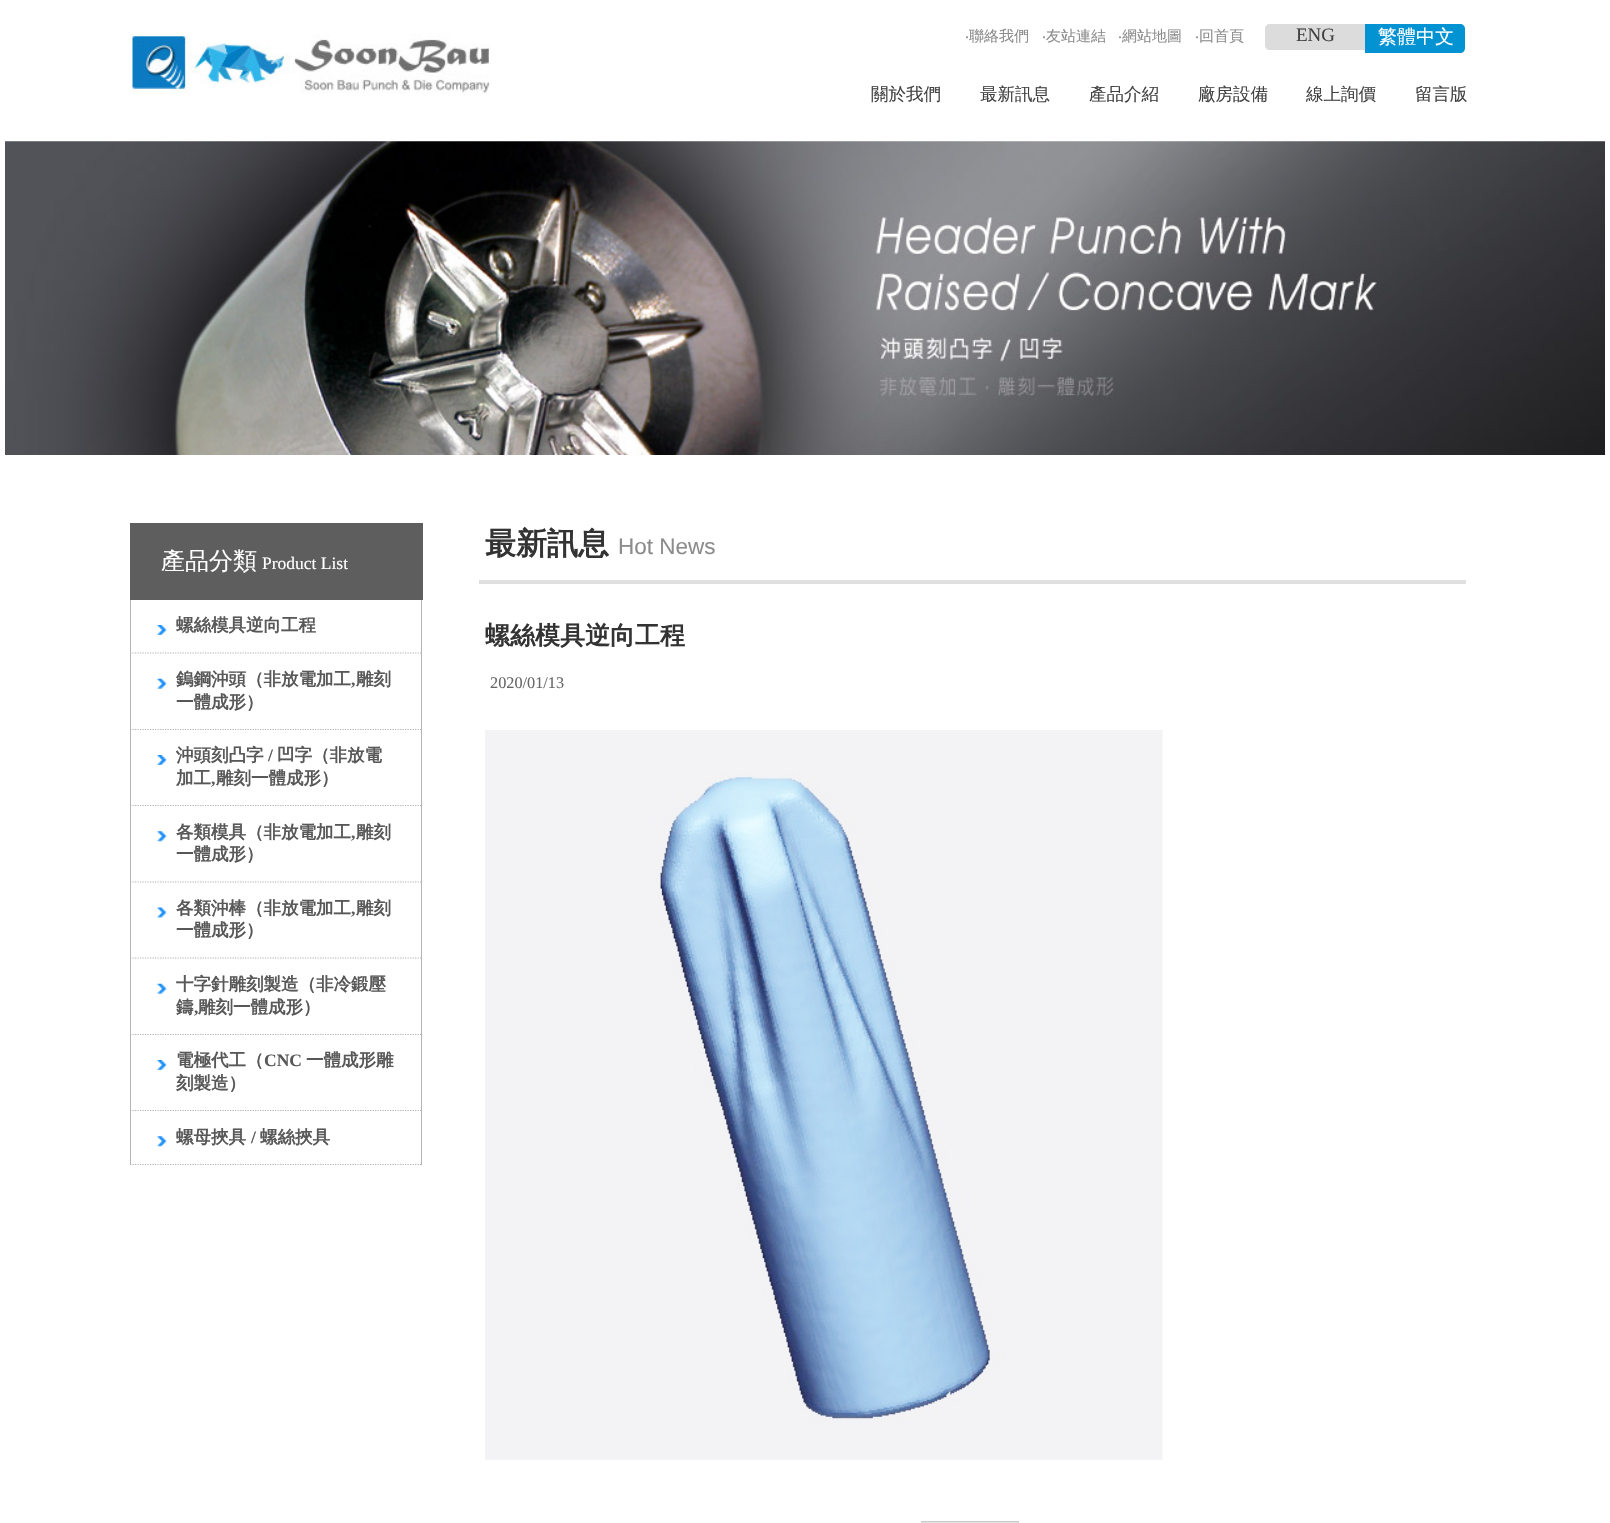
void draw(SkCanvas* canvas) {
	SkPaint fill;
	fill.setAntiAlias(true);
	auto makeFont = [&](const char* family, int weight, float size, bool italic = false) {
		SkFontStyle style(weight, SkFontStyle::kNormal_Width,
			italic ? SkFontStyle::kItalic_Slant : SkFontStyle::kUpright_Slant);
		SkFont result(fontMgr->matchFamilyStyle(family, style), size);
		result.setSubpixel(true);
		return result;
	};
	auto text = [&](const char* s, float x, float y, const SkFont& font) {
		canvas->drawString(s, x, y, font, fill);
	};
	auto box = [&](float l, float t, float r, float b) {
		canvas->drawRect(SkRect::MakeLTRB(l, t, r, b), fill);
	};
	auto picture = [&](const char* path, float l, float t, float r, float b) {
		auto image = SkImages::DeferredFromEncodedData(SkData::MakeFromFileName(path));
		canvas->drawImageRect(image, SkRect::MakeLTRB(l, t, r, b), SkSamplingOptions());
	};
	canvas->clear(0xFFFFFFFF);
	picture("image0.png", 130, 34, 490, 94);
	fill.setColor(0xFFDCDCDC);
	canvas->drawPath(SkPathBuilder().moveTo(1270, 24).lineTo(1365, 24).lineTo(1365, 50).lineTo(1270, 50).cubicTo(1267, 50, 1265, 48, 1265, 45).lineTo(1265, 29).cubicTo(1265, 26, 1267, 24, 1270, 24).close().detach(), fill);
	fill.setColor(0xFF0393D2);
	canvas->drawPath(SkPathBuilder().moveTo(1365, 24).lineTo(1460, 24).cubicTo(1463, 24, 1465, 26, 1465, 29).lineTo(1465, 48).cubicTo(1465, 51, 1463, 53, 1460, 53).lineTo(1365, 53).close().detach(), fill);
	picture("image1.png", 5, 141, 1605, 455);
	fill.setColor(0xFF5E5E5E);
	box(130, 523, 423, 600);
	picture("image2.png", 156, 625, 167, 635);
	fill.setColor(0xFFB4B4B4);
	box(421, 600, 422, 730);
	fill.setStyle(SkPaint::kStroke_Style);
	fill.setStrokeWidth(1.2f);
	fill.setPathEffect(SkDashPathEffect::Make({{1.25f, 1.25f}}, 0));
	canvas->drawPath(SkPathBuilder().moveTo(130, 653).lineTo(422.5f, 653).detach(), fill);
	fill.setPathEffect(nullptr);
	fill.setStyle(SkPaint::kFill_Style);
	box(130, 600, 131, 654);
	picture("image3.png", 156, 678, 167, 689);
	fill.setStyle(SkPaint::kStroke_Style);
	fill.setPathEffect(SkDashPathEffect::Make({{1.25f, 1.25f}}, 0));
	canvas->drawPath(SkPathBuilder().moveTo(130, 729.5f).lineTo(422.5f, 729.5f).detach(), fill);
	fill.setPathEffect(nullptr);
	fill.setStyle(SkPaint::kFill_Style);
	box(130, 654, 131, 730);
	fill.setColor(0xFFFFFFFF);
	box(132, 730, 421, 731);
	picture("image2.png", 156, 755, 167, 765);
	fill.setColor(0xFFB4B4B4);
	box(421, 730, 422, 806);
	fill.setStyle(SkPaint::kStroke_Style);
	fill.setPathEffect(SkDashPathEffect::Make({{1.25f, 1.25f}}, 0));
	canvas->drawPath(SkPathBuilder().moveTo(130, 805.5f).lineTo(422.5f, 805.5f).detach(), fill);
	fill.setPathEffect(nullptr);
	fill.setStyle(SkPaint::kFill_Style);
	box(130, 730, 131, 806);
	fill.setColor(0xFFFFFFFF);
	box(132, 806, 421, 807);
	picture("image4.png", 157, 831, 167, 842);
	fill.setColor(0xFFB4B4B4);
	box(421, 806, 422, 1035);
	fill.setStyle(SkPaint::kStroke_Style);
	fill.setPathEffect(SkDashPathEffect::Make({{1.25f, 1.25f}}, 0));
	canvas->drawPath(SkPathBuilder().moveTo(130, 882).lineTo(422.5f, 882).detach(), fill);
	fill.setPathEffect(nullptr);
	fill.setStyle(SkPaint::kFill_Style);
	box(130, 806, 131, 883);
	picture("image5.png", 157, 907, 167, 918);
	fill.setStyle(SkPaint::kStroke_Style);
	fill.setPathEffect(SkDashPathEffect::Make({{1.25f, 1.25f}}, 0));
	canvas->drawPath(SkPathBuilder().moveTo(130, 958).lineTo(422.5f, 958).detach(), fill);
	fill.setPathEffect(nullptr);
	fill.setStyle(SkPaint::kFill_Style);
	box(130, 883, 131, 959);
	picture("image3.png", 156, 983, 167, 994);
	fill.setStyle(SkPaint::kStroke_Style);
	fill.setPathEffect(SkDashPathEffect::Make({{1.25f, 1.25f}}, 0));
	canvas->drawPath(SkPathBuilder().moveTo(130, 1034.5f).lineTo(422.5f, 1034.5f).detach(), fill);
	fill.setPathEffect(nullptr);
	fill.setStyle(SkPaint::kFill_Style);
	box(130, 959, 131, 1035);
	fill.setColor(0xFFFFFFFF);
	box(132, 1035, 421, 1036);
	picture("image2.png", 156, 1060, 167, 1070);
	fill.setColor(0xFFB4B4B4);
	box(421, 1035, 422, 1111);
	fill.setStyle(SkPaint::kStroke_Style);
	fill.setPathEffect(SkDashPathEffect::Make({{1.25f, 1.25f}}, 0));
	canvas->drawPath(SkPathBuilder().moveTo(130, 1110.5f).lineTo(422.5f, 1110.5f).detach(), fill);
	fill.setPathEffect(nullptr);
	fill.setStyle(SkPaint::kFill_Style);
	box(130, 1035, 131, 1111);
	fill.setColor(0xFFFFFFFF);
	box(132, 1111, 421, 1112);
	picture("image4.png", 157, 1136, 167, 1147);
	fill.setColor(0xFFB4B4B4);
	box(421, 1111, 422, 1165);
	fill.setStyle(SkPaint::kStroke_Style);
	fill.setPathEffect(SkDashPathEffect::Make({{1.25f, 1.25f}}, 0));
	canvas->drawPath(SkPathBuilder().moveTo(130, 1164.5f).lineTo(422.5f, 1164.5f).detach(), fill);
	fill.setPathEffect(nullptr);
	fill.setStyle(SkPaint::kFill_Style);
	box(130, 1111, 131, 1165);
	fill.setColor(0xFFDFDFDF);
	box(479, 580, 1466, 584);
	picture("image6.png", 485, 730, 1163, 1460);
	fill.setColor(0xFFE3E3E3);
	canvas->drawRect(SkRect::MakeLTRB(921.5f, 1521.5f, 1018.5f, 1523.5f), fill);
	fill.setStyle(SkPaint::kStroke_Style);
	fill.setStrokeWidth(1);
	fill.setColor(0xFFCCCCCC);
	canvas->drawRect(SkRect::MakeLTRB(921.5f, 1521.5f, 1018.5f, 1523.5f), fill);
	auto font1 = makeFont("Noto Sans", 400, 15);
	fill.setStyle(SkPaint::kFill_Style);
	fill.setColor(0xFF8C8C8C);
	text("‧", 965, 41, font1);
	auto font2 = makeFont("WenQuanYi Zen Hei", 500, 15);
	text("聯絡我們", 969, 41, font2);
	text("‧", 1042, 41, font1);
	text("友站連結", 1046, 41, font2);
	text("‧", 1118, 41, font1);
	text("網站地圖", 1122, 41, font2);
	text("‧", 1195, 41, font1);
	text("回首頁", 1199, 41, font2);
	auto font3 = makeFont("Liberation Serif", 400, 19);
	fill.setColor(0xFF414141);
	text("ENG", 1296, 41, font3);
	auto font4 = makeFont("WenQuanYi Zen Hei", 500, 19);
	fill.setColor(0xFFFFFFFF);
	text("繁體中文", 1378, 43, font4);
	auto font5 = makeFont("WenQuanYi Zen Hei", 500, 17.5f);
	fill.setColor(0xFF414141);
	text("關於我們", 871, 100, font5);
	text("最新訊息", 980, 100, font5);
	text("產品介紹", 1089, 100, font5);
	text("廠房設備", 1198, 100, font5);
	text("線上詢價", 1306, 100, font5);
	text("留言版", 1415, 100, font5);
	auto font6 = makeFont("WenQuanYi Zen Hei", 500, 24);
	fill.setColor(0xFFFFFFFF);
	text("產品分類", 161, 569, font6);
	auto font7 = makeFont("Liberation Serif", 400, 17.5f);
	text("Product List", 262, 569, font7);
	auto font8 = makeFont("WenQuanYi Zen Hei", 700, 17.5f);
	fill.setColor(0xFF585858);
	text("螺絲模具逆向工程", 176, 631, font8);
	text("鎢鋼沖頭（非放電加工", 176, 685, font8);
	auto font9 = makeFont("Liberation Serif", 700, 17.5f);
	text(",", 351, 685, font9);
	text("雕刻", 356, 685, font8);
	text("一體成形）", 176, 708, font8);
	text("沖頭刻凸字", 176, 761, font8);
	text("/", 268, 761, font9);
	text("凹字（非放電", 277, 761, font8);
	text("加工", 176, 784, font8);
	text(",", 211, 784, font9);
	text("雕刻一體成形）", 216, 784, font8);
	text("各類模具（非放電加工", 176, 838, font8);
	text(",", 351, 838, font9);
	text("雕刻", 356, 838, font8);
	text("一體成形）", 176, 860, font8);
	text("各類沖棒（非放電加工", 176, 914, font8);
	text(",", 351, 914, font9);
	text("雕刻", 356, 914, font8);
	text("一體成形）", 176, 936, font8);
	text("十字針雕刻製造（非冷鍛壓", 176, 990, font8);
	text("鑄", 176, 1013, font8);
	text(",", 194, 1013, font9);
	text("雕刻一體成形）", 198, 1013, font8);
	text("電極代工（", 176, 1066, font8);
	text("CNC", 264, 1066, font9);
	text("一體成形雕", 306, 1066, font8);
	text("刻製造）", 176, 1089, font8);
	text("螺母挾具", 176, 1143, font8);
	text("/", 251, 1143, font9);
	text("螺絲挾具", 260, 1143, font8);
	auto font10 = makeFont("WenQuanYi Zen Hei", 700, 31);
	fill.setColor(0xFF333333);
	text("最新訊息", 485, 554, font10);
	auto font11 = makeFont("Liberation Sans", 400, 22.5f);
	fill.setColor(0xFF8C8C8C);
	text("Hot News", 618, 554, font11);
	auto font12 = makeFont("WenQuanYi Zen Hei", 700, 25);
	fill.setColor(0xFF333333);
	text("螺絲模具逆向工程", 485, 644, font12);
	auto font13 = makeFont("Liberation Serif", 400, 16.25f);
	fill.setColor(0xFF666666);
	text("2020/01/13", 490, 688, font13);
}
